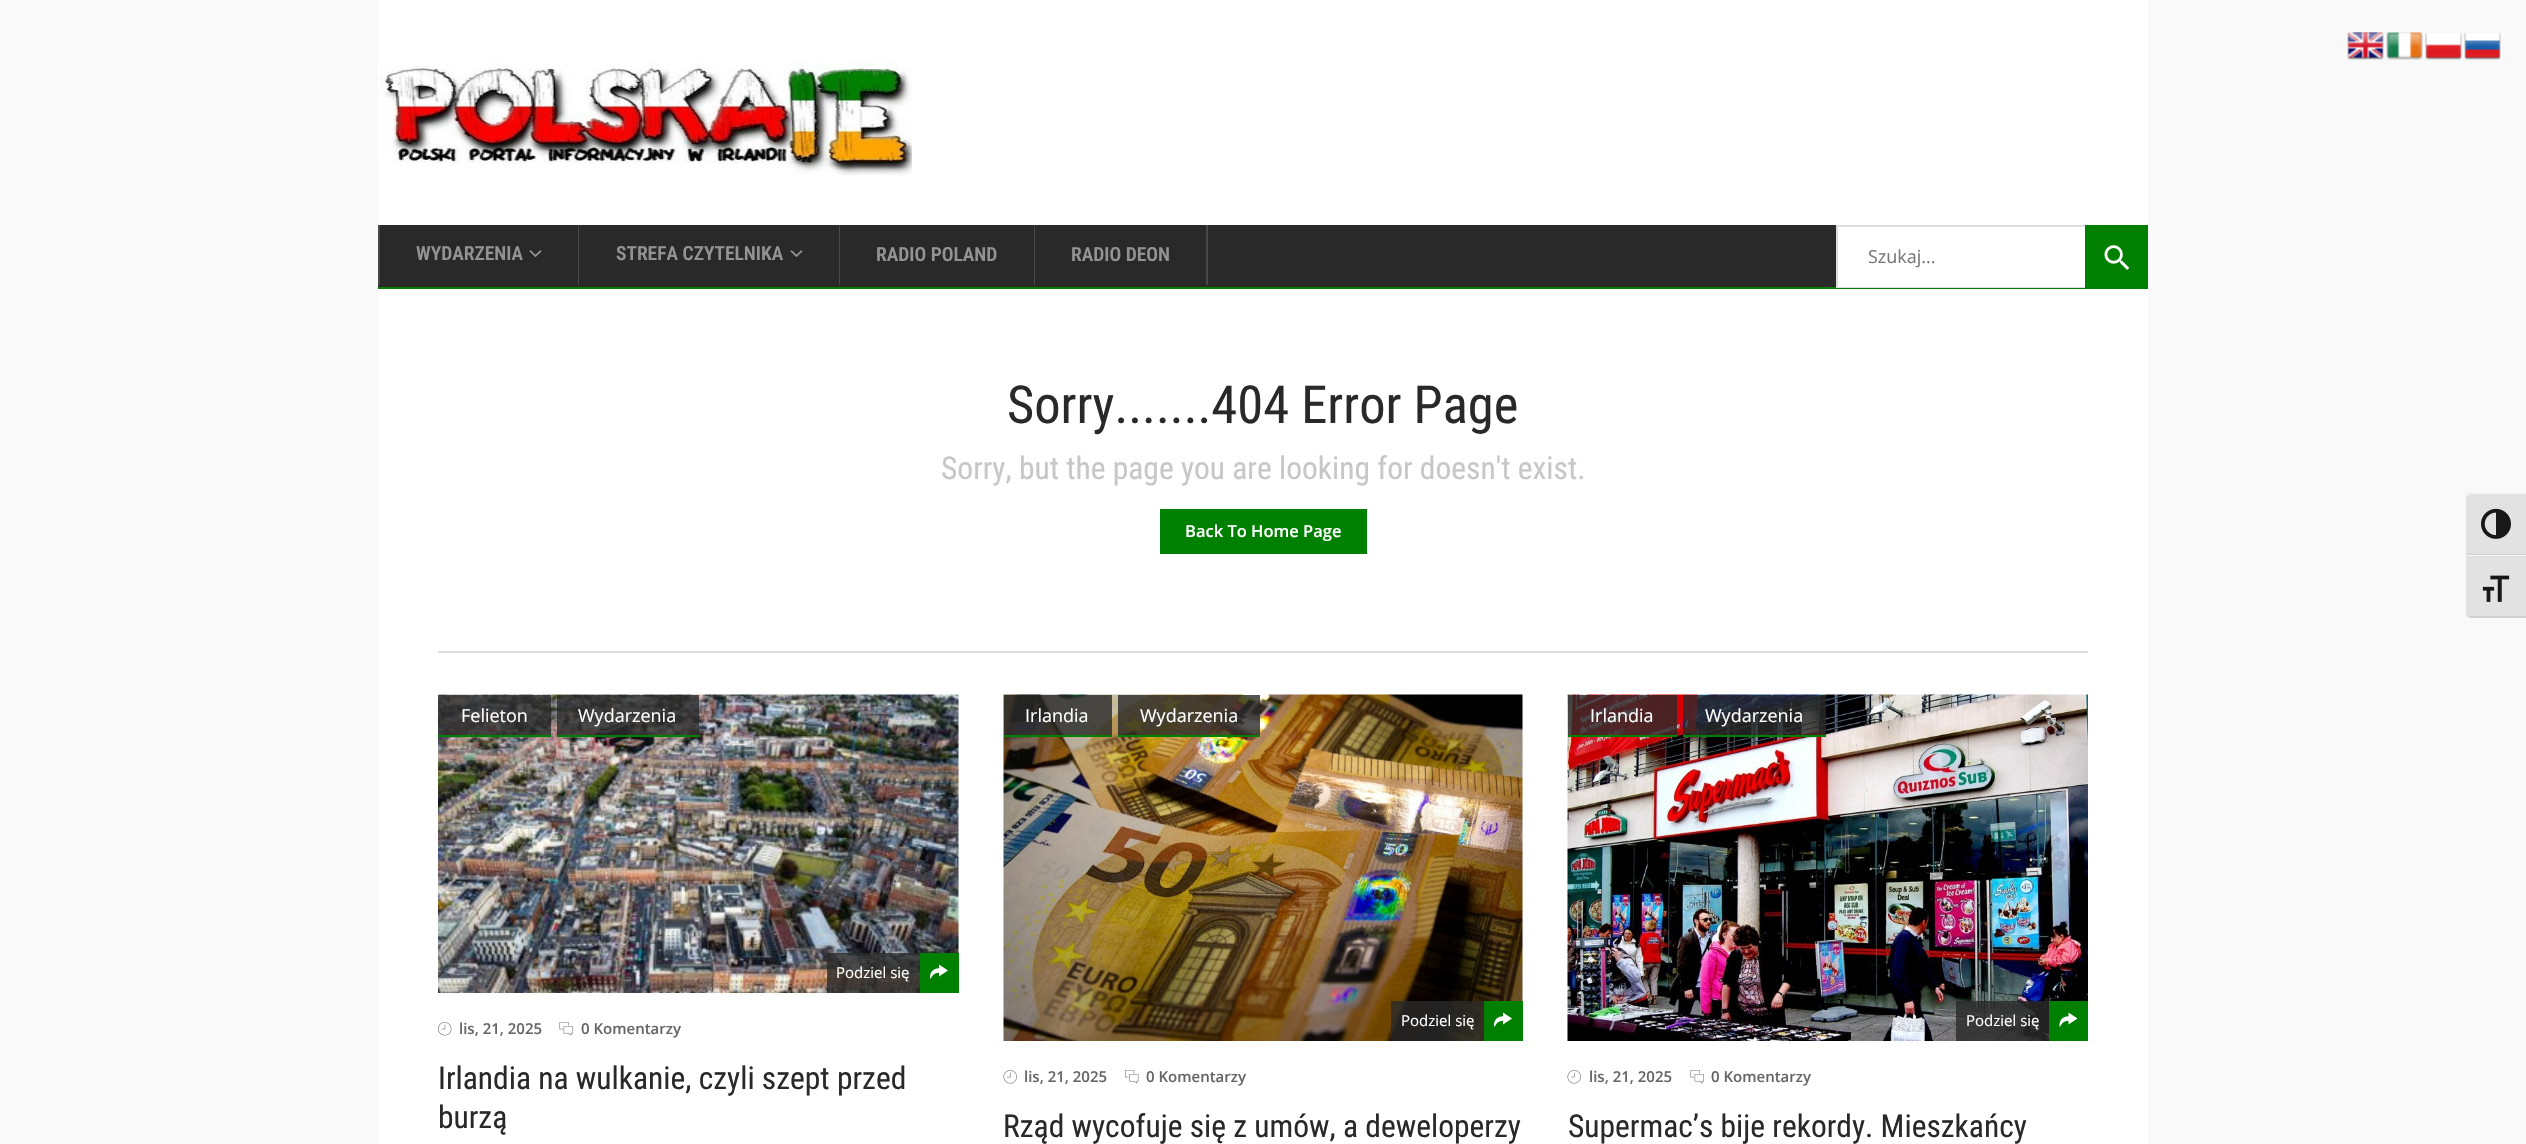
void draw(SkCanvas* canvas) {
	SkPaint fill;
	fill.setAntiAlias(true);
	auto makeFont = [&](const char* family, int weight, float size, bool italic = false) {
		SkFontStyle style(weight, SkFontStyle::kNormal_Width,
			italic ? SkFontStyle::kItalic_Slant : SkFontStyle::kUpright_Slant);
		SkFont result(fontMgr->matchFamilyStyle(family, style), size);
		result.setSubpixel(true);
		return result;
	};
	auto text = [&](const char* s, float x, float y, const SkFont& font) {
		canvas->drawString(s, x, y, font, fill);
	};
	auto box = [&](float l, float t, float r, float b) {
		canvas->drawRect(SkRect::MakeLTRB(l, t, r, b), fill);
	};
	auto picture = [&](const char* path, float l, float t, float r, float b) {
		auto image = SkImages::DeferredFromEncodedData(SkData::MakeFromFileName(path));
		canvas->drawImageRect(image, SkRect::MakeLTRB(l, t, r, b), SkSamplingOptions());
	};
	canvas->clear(0xFFF9F9F9);
	picture("image7.png", 2347, 32, 2384, 60);
	picture("image0.png", 2347, 32, 2384, 60);
	picture("image8.png", 2386, 32, 2423, 60);
	picture("image1.png", 2386, 32, 2423, 60);
	picture("image9.png", 2425, 32, 2462, 60);
	picture("image2.png", 2425, 33, 2462, 60);
	picture("image10.png", 2464, 32, 2501, 60);
	picture("image3.png", 2464, 33, 2501, 60);
	fill.setColor(0xFFFFFFFF);
	box(378, 0, 2148, 225);
	picture("image4.png", 379, 61, 912, 176);
	fill.setColor(0xFF292929);
	box(378, 225, 1836, 287);
	fill.setColor(0xFF008000);
	box(378, 287, 2148, 289);
	fill.setColor(0xFF494848);
	box(578, 225, 579, 285);
	box(378, 225, 380, 285);
	picture("image5.png", 529, 250, 542, 257);
	box(839, 225, 840, 285);
	picture("image5.png", 790, 250, 803, 257);
	box(1034, 225, 1035, 285);
	box(1206, 225, 1208, 285);
	fill.setColor(0xFFFFFFFF);
	box(1838, 227, 2085, 287);
	fill.setColor(0xFFDDDDDD);
	box(1836, 225, 2085, 227);
	box(1836, 287, 2085, 288);
	box(1836, 225, 1838, 288);
	fill.setColor(0xFF008000);
	box(2085, 225, 2148, 287);
	picture("image6.png", 2104, 245, 2130, 270);
	fill.setColor(0xFFFFFFFF);
	box(378, 289, 2148, 1144);
	fill.setColor(0xFF008000);
	box(1160, 509, 1367, 554);
	fill.setColor(0xFFDDDDDD);
	box(438, 651, 2088, 653);
	picture("image11.png", 438, 694, 959, 993);
	fill.setColor(0xCC292929);
	box(438, 695, 551, 735);
	fill.setColor(0xFF008000);
	box(438, 735, 551, 737);
	fill.setColor(0xCC292929);
	box(557, 695, 699, 735);
	fill.setColor(0xFF008000);
	box(557, 735, 699, 737);
	fill.setColor(0xCC292929);
	box(827, 953, 920, 993);
	fill.setColor(0xFF008000);
	box(920, 953, 959, 993);
	picture("image12.png", 930, 964, 948, 979);
	picture("image13.png", 438, 1022, 452, 1036);
	picture("image14.png", 559, 1022, 573, 1036);
	picture("image15.png", 1003, 694, 1523, 1041);
	fill.setColor(0xCC292929);
	box(1004, 695, 1112, 735);
	fill.setColor(0xFF008000);
	box(1004, 735, 1112, 737);
	fill.setColor(0xCC292929);
	box(1118, 695, 1260, 735);
	fill.setColor(0xFF008000);
	box(1118, 735, 1260, 737);
	fill.setColor(0xCC292929);
	box(1391, 1001, 1484, 1041);
	fill.setColor(0xFF008000);
	box(1484, 1001, 1523, 1041);
	picture("image12.png", 1494, 1012, 1512, 1027);
	picture("image16.png", 1003, 1070, 1017, 1084);
	picture("image17.png", 1125, 1070, 1139, 1084);
	picture("image18.png", 1567, 694, 2088, 1041);
	fill.setColor(0xCC292929);
	box(1568, 695, 1677, 735);
	fill.setColor(0xFF008000);
	box(1568, 735, 1677, 737);
	fill.setColor(0xCC292929);
	box(1683, 695, 1826, 735);
	fill.setColor(0xFF008000);
	box(1683, 735, 1826, 737);
	fill.setColor(0xCC292929);
	box(1956, 1001, 2049, 1041);
	fill.setColor(0xFF008000);
	box(2049, 1001, 2088, 1041);
	picture("image19.png", 2059, 1012, 2078, 1027);
	picture("image16.png", 1567, 1070, 1581, 1084);
	picture("image14.png", 1690, 1070, 1704, 1084);
	fill.setColor(0xFFE2E2E2);
	canvas->drawPath(SkPathBuilder().moveTo(2472, 492).lineTo(2526, 492).lineTo(2526, 555).lineTo(2466, 555).lineTo(2466, 498).cubicTo(2466, 494.5f, 2468.5f, 492, 2472, 492).close().detach(), fill);
	fill.setColor(0xFFF5F5F5);
	canvas->drawPath(SkPathBuilder().moveTo(2472, 494).lineTo(2526, 494).lineTo(2526, 492).lineTo(2472, 492).cubicTo(2469, 492, 2466, 495, 2466, 498).cubicTo(2466, 496, 2469, 494, 2472, 494).close().detach(), fill);
	fill.setColor(0xFFD2D2D2);
	box(2466, 554, 2526, 555);
	picture("image20.png", 2481, 508, 2511, 539);
	fill.setColor(0xFFE2E2E2);
	canvas->drawPath(SkPathBuilder().moveTo(2466, 555).lineTo(2526, 555).lineTo(2526, 618).lineTo(2472, 618).cubicTo(2468.5f, 618, 2466, 615.5f, 2466, 612).close().detach(), fill);
	fill.setColor(0xFFF5F5F5);
	box(2466, 555, 2526, 556);
	fill.setColor(0xFFD2D2D2);
	canvas->drawPath(SkPathBuilder().moveTo(2526, 618).lineTo(2526, 616).lineTo(2472, 616).cubicTo(2469, 616, 2466, 614, 2466, 612).cubicTo(2466, 615, 2469, 618, 2472, 618).close().detach(), fill);
	picture("image21.png", 2482, 575, 2510, 602);
	auto font1 = makeFont("Roboto Condensed", 600, 19.5f);
	fill.setColor(0xFF949393);
	text("WYDARZENIA", 416, 260, font1);
	text("STREFA CZYTELNIKA", 616, 260, font1);
	text("RADIO POLAND", 876, 261, font1);
	text("RADIO DEON", 1071, 261, font1);
	auto font2 = makeFont("Open Sans", 400, 18);
	fill.setColor(0xFF777777);
	text("Szukaj...", 1868, 263, font2);
	auto font3 = makeFont("Roboto Condensed", 400, 52.5f);
	fill.setColor(0xFF292929);
	text("Sorry.......404 Error Page", 1007, 423, font3);
	auto font4 = makeFont("Roboto Condensed", 400, 31.5f);
	fill.setColor(0xFFC7C7C7);
	text("Sorry, but the page you are looking for doesn't exist.", 941, 479, font4);
	auto font5 = makeFont("Open Sans", 600, 16.5f);
	fill.setColor(0xFFFFFFFF);
	text("Back To Home Page", 1185, 537, font5);
	text("Felieton", 461, 722, font2);
	text("Wydarzenia", 578, 722, font2);
	auto font6 = makeFont("Open Sans", 400, 15);
	text("Podziel się", 836, 978, font6);
	auto font7 = makeFont("Open Sans", 600, 15);
	fill.setColor(0xFF666666);
	text("lis, 21, 2025", 459, 1034, font7);
	text("0 Komentarzy", 581, 1034, font7);
	fill.setColor(0xFF292929);
	text("Irlandia na wulkanie, czyli szept przed", 438, 1089, font4);
	text("burzą", 438, 1128, font4);
	fill.setColor(0xFFFFFFFF);
	text("Irlandia", 1025, 722, font2);
	text("Wydarzenia", 1140, 722, font2);
	text("Podziel się", 1401, 1026, font6);
	fill.setColor(0xFF666666);
	text("lis, 21, 2025", 1024, 1082, font7);
	text("0 Komentarzy", 1146, 1082, font7);
	fill.setColor(0xFF292929);
	text("Rząd wycofuje się z umów, a deweloperzy", 1003, 1137, font4);
	fill.setColor(0xFFFFFFFF);
	text("Irlandia", 1590, 722, font2);
	text("Wydarzenia", 1705, 722, font2);
	text("Podziel się", 1966, 1026, font6);
	fill.setColor(0xFF666666);
	text("lis, 21, 2025", 1589, 1082, font7);
	text("0 Komentarzy", 1711, 1082, font7);
	fill.setColor(0xFF292929);
	text("Supermac’s bije rekordy. Mieszkańcy", 1568, 1137, font4);
}
